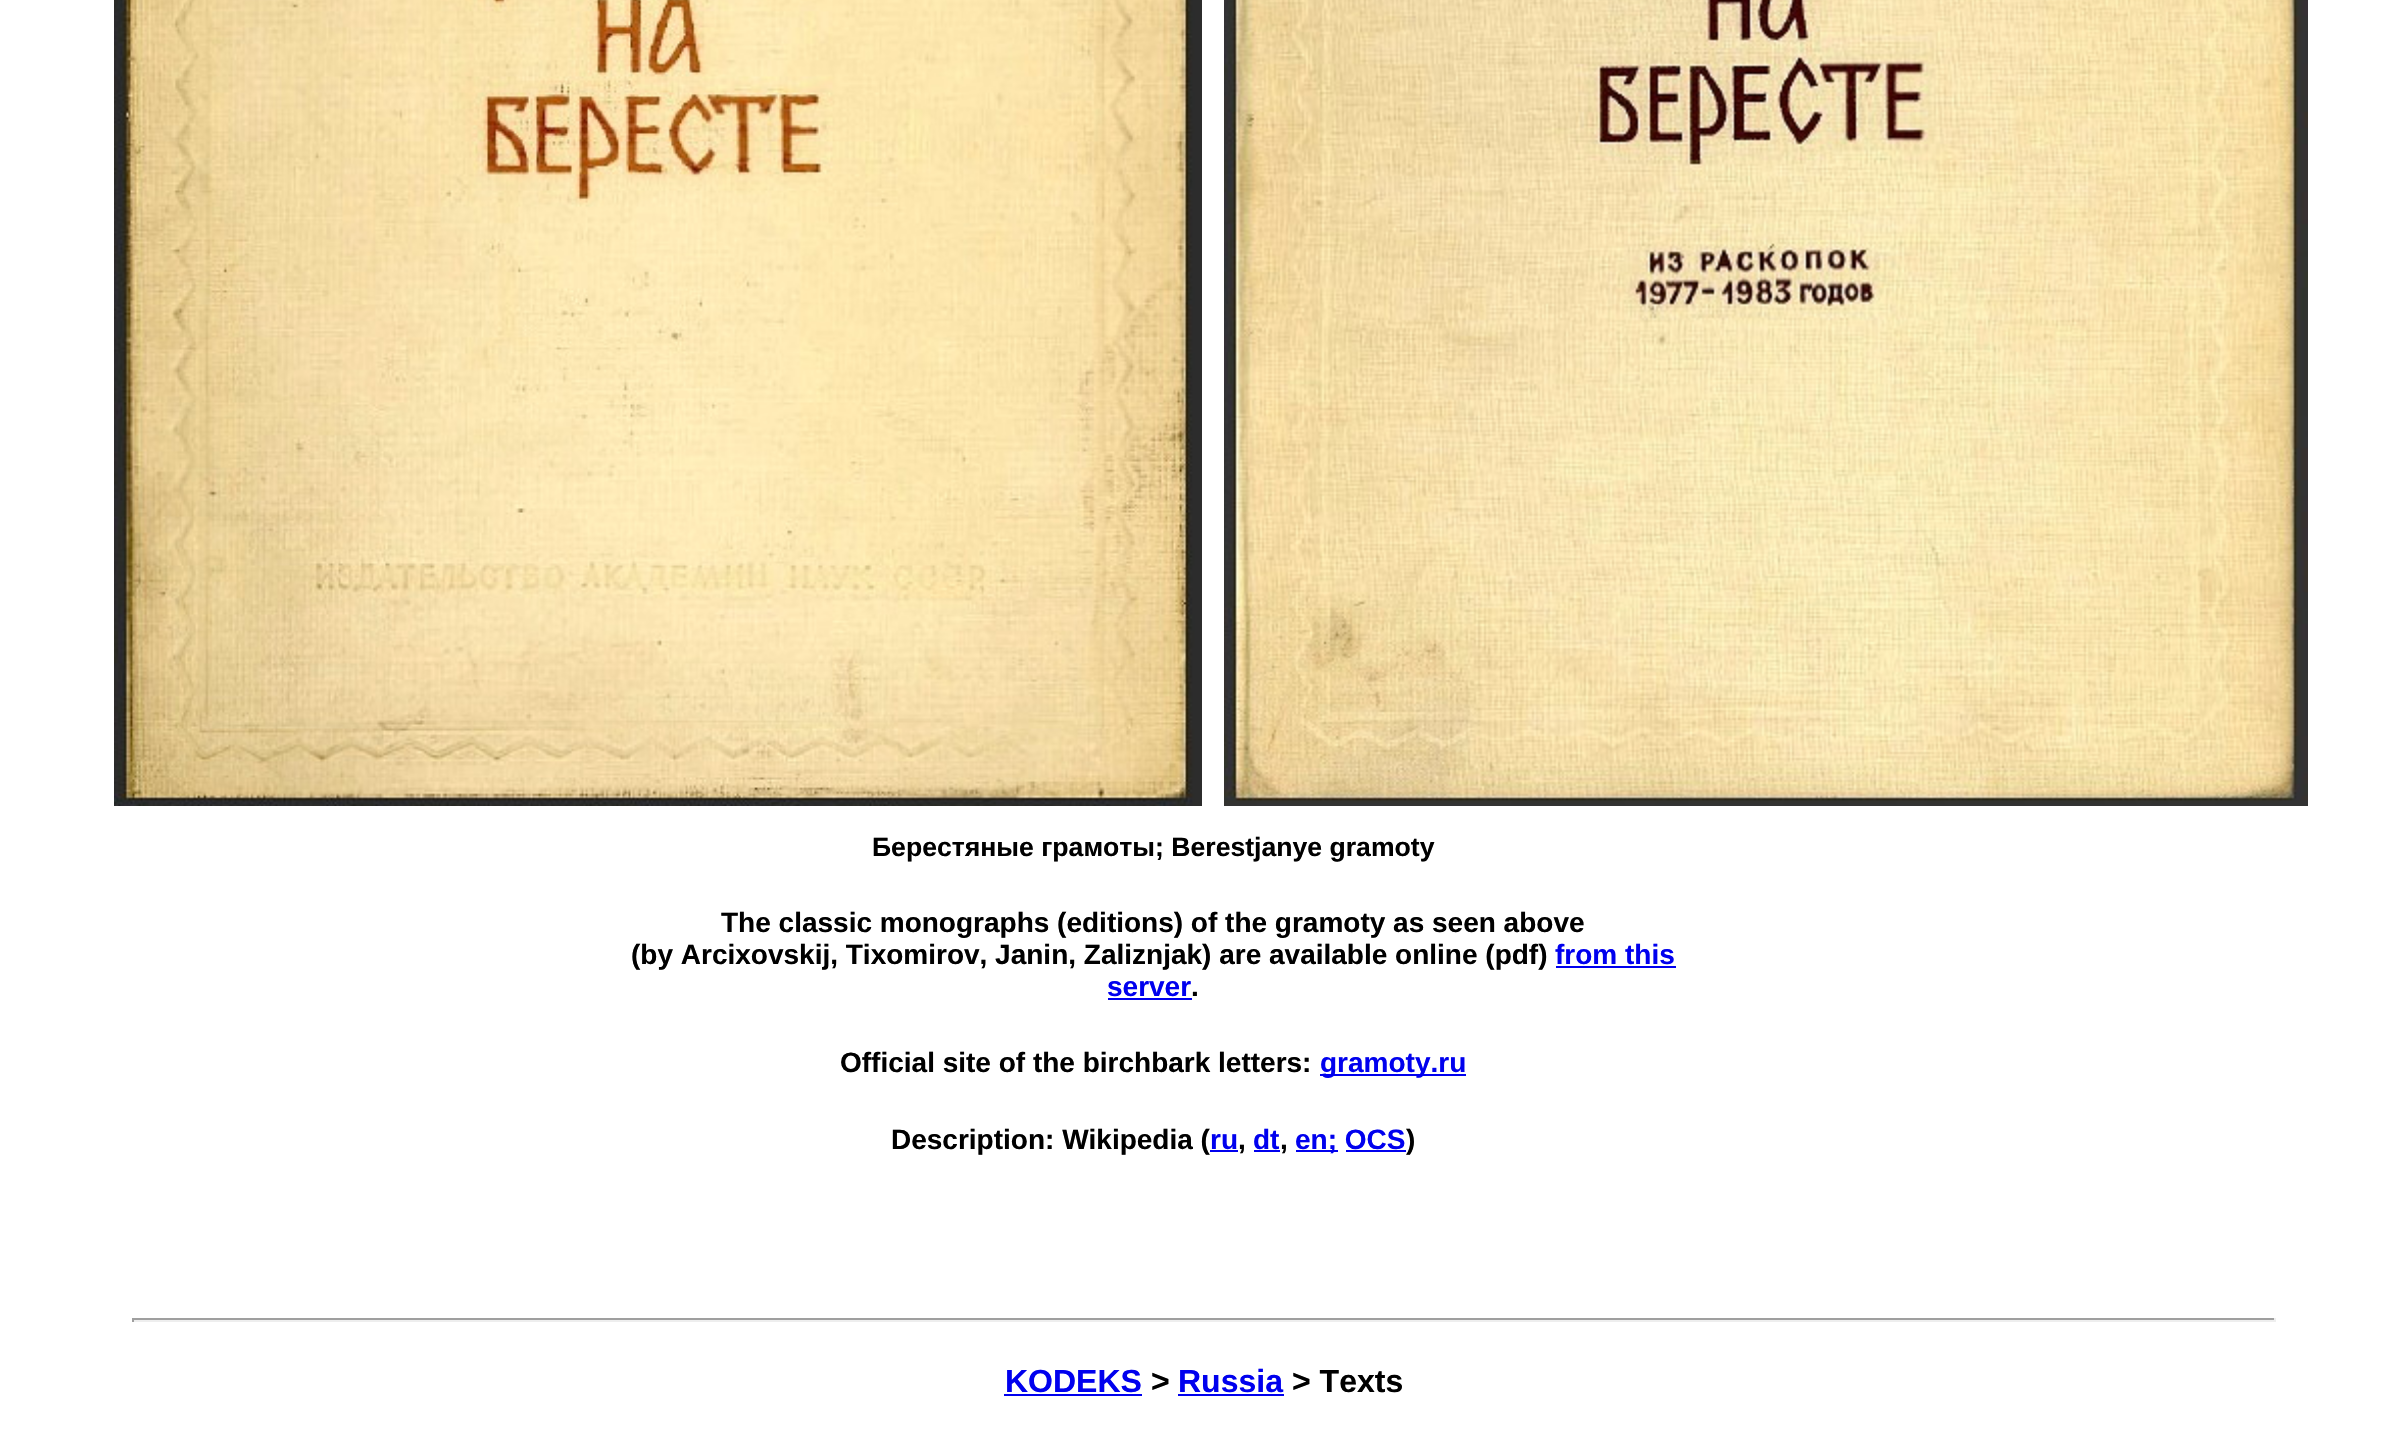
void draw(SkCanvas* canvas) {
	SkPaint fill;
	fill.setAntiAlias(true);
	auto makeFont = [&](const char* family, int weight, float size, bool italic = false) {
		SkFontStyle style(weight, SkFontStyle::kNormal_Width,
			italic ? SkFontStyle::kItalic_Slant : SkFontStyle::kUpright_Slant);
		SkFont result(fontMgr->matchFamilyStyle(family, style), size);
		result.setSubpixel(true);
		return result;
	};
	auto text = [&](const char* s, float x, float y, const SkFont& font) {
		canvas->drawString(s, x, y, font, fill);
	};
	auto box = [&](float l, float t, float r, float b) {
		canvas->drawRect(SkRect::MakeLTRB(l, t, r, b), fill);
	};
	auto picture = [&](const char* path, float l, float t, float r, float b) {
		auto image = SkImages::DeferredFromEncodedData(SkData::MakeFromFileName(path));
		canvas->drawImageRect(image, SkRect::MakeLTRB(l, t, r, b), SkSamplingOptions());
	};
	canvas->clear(0xFFFFFFFF);
	picture("image0.png", 114, 0, 1202, 806);
	picture("image1.png", 1224, 0, 2308, 806);
	fill.setColor(0xFF0000EE);
	box(1556, 966, 1676, 968);
	box(1108, 998, 1192, 1000);
	box(1320, 1074, 1466, 1076);
	box(1210, 1150, 1238, 1152);
	box(1254, 1150, 1280, 1152);
	box(1296, 1150, 1338, 1152);
	box(1346, 1150, 1406, 1152);
	fill.setColor(0xFF9F9F9F);
	box(132, 1318, 2276, 1320);
	fill.setColor(0xFFEEEEEE);
	box(2274, 1318, 2276, 1322);
	box(132, 1320, 2276, 1322);
	fill.setColor(0xFF9F9F9F);
	box(132, 1318, 134, 1322);
	fill.setColor(0xFF0000EE);
	box(1004, 1394, 1142, 1396);
	box(1178, 1394, 1284, 1396);
	auto font1 = makeFont("Liberation Sans", 700, 26.6f);
	fill.setColor(0xFF000000);
	text("Берестяные грамоты; Berestjanye gramoty", 872, 856, font1);
	auto font2 = makeFont("Liberation Sans", 700, 28);
	text("The classic monographs (editions) of the gramoty as seen above", 721, 932, font2);
	text("(by Arcixovskij, Tixomirov, Janin, Zaliznjak) are available online (pdf)", 631, 964, font2);
	fill.setColor(0xFF0000EE);
	text("from this", 1555, 964, font2);
	text("server", 1107, 996, font2);
	fill.setColor(0xFF000000);
	text(".", 1191, 996, font2);
	text("Official site of the birchbark letters:", 840, 1072, font2);
	fill.setColor(0xFF0000EE);
	text("gramoty.ru", 1320, 1072, font2);
	fill.setColor(0xFF000000);
	text("Description: Wikipedia (", 891, 1149, font2);
	fill.setColor(0xFF0000EE);
	text("ru", 1210, 1149, font2);
	fill.setColor(0xFF000000);
	text(",", 1238, 1149, font2);
	fill.setColor(0xFF0000EE);
	text("dt", 1253, 1149, font2);
	fill.setColor(0xFF000000);
	text(",", 1280, 1149, font2);
	fill.setColor(0xFF0000EE);
	text("en; OCS", 1295, 1149, font2);
	fill.setColor(0xFF000000);
	text(")", 1406, 1149, font2);
	auto font3 = makeFont("Liberation Sans", 700, 32);
	fill.setColor(0xFF0000EE);
	text("KODEKS", 1005, 1392, font3);
	fill.setColor(0xFF000000);
	text(">", 1151, 1392, font3);
	fill.setColor(0xFF0000EE);
	text("Russia", 1178, 1392, font3);
	fill.setColor(0xFF000000);
	text("> Texts", 1292, 1392, font3);
}
